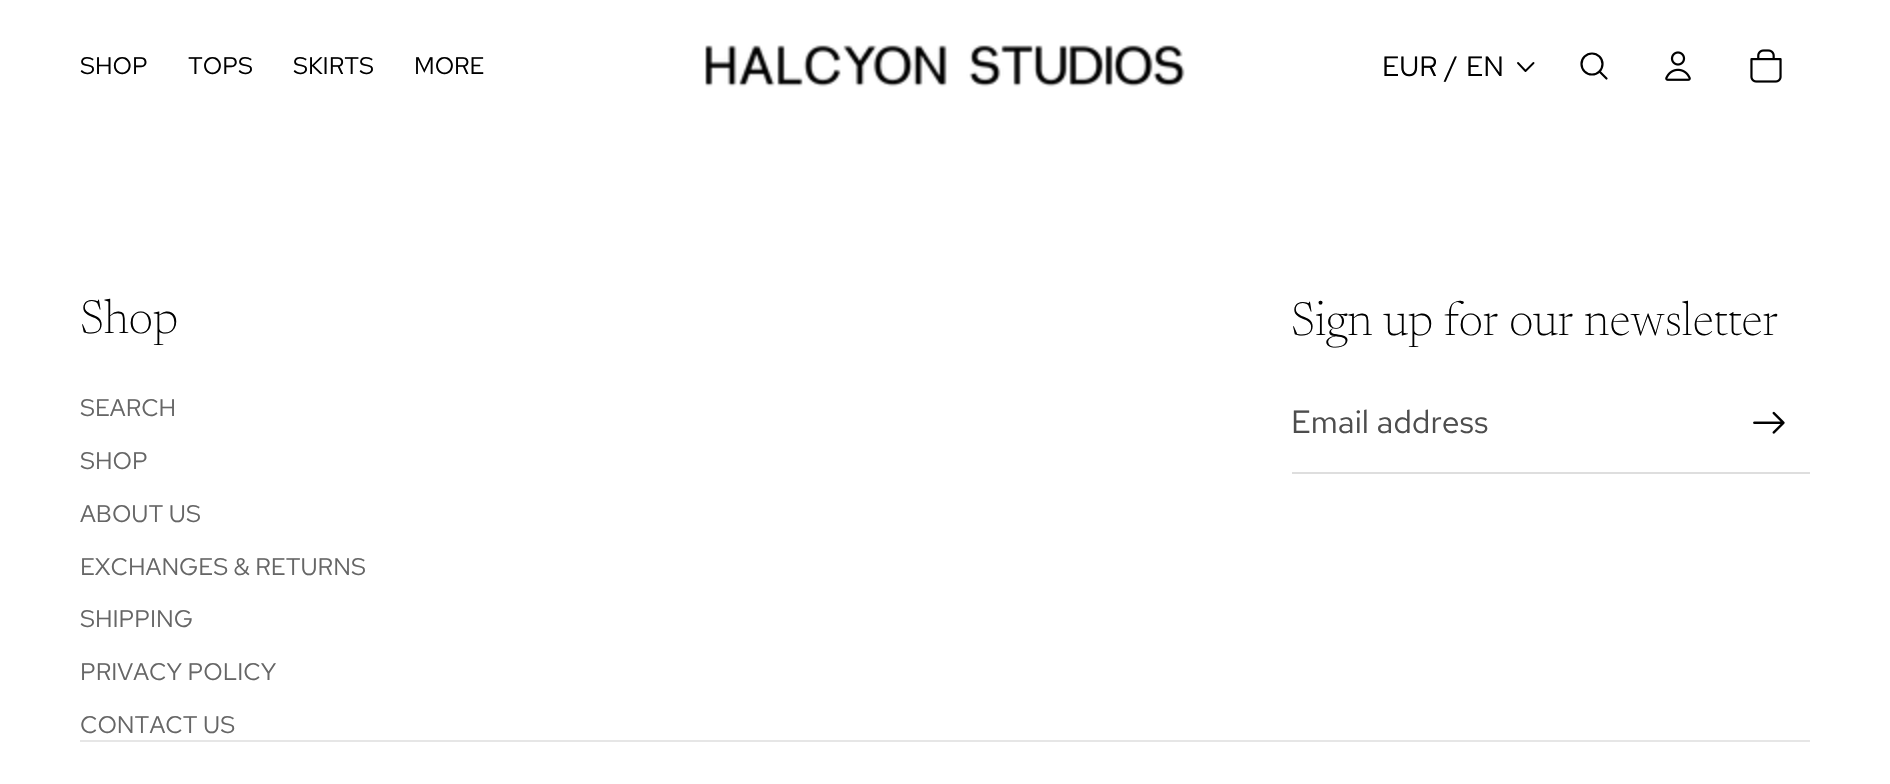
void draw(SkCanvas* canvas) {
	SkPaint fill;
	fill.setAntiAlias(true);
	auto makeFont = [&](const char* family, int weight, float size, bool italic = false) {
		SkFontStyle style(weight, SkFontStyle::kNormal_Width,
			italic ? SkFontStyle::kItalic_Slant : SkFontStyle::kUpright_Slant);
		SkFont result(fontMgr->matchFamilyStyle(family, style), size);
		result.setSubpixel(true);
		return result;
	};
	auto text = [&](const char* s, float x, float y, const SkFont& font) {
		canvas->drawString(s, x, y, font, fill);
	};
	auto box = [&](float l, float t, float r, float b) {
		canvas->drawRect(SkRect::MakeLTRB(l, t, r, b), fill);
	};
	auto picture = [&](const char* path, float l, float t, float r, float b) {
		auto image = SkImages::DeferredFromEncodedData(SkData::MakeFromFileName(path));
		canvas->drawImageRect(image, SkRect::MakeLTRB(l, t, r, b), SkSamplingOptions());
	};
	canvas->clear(0xFFFFFFFF);
	picture("image0.png", 705, 45, 1185, 87);
	fill.setStyle(SkPaint::kStroke_Style);
	fill.setStrokeWidth(1.9f);
	fill.setStrokeCap(SkPaint::kRound_Cap);
	fill.setStrokeJoin(SkPaint::kRound_Join);
	fill.setColor(0xFF000000);
	canvas->drawPath(SkPathBuilder().moveTo(1533.5f, 63).lineTo(1525.5f, 71).lineTo(1518, 63).detach(), fill);
	fill.setStrokeWidth(2.2f);
	fill.setStrokeCap(SkPaint::kButt_Cap);
	fill.setStrokeJoin(SkPaint::kMiter_Join);
	canvas->drawCircle(1592, 64, 10.5f, fill);
	fill.setStrokeCap(SkPaint::kRound_Cap);
	fill.setStrokeJoin(SkPaint::kRound_Join);
	canvas->drawPath(SkPathBuilder().moveTo(1599.5f, 71.5f).lineTo(1606.5f, 78.5f).detach(), fill);
	picture("image1.png", 1665, 51, 1691, 81);
	picture("image2.png", 1750, 49, 1782, 83);
	fill.setStyle(SkPaint::kFill_Style);
	fill.setColor(0xFFDEDEDE);
	box(1292, 472, 1810, 474);
	picture("image3.png", 1753, 411, 1785, 434);
	fill.setColor(0xFFE6E6E6);
	box(80, 740, 1810, 742);
	auto font1 = makeFont("Red Hat Text", 400, 24);
	fill.setColor(0xFF000000);
	text("SHOP", 80, 74, font1);
	text("TOPS", 188, 74, font1);
	text("SKIRTS", 293, 74, font1);
	text("MORE", 414, 74, font1);
	auto font2 = makeFont("Red Hat Text", 400, 28);
	text("EUR", 1382, 76, font2);
	text("/", 1445, 76, font2);
	text("EN", 1466, 76, font2);
	auto font3 = makeFont("Newsreader", 200, 48);
	text("Shop", 80, 333, font3);
	fill.setColor(0xFF666666);
	text("SEARCH", 80, 416, font1);
	text("SHOP", 80, 469, font1);
	text("ABOUT US", 80, 522, font1);
	text("EXCHANGES & RETURNS", 80, 575, font1);
	text("SHIPPING", 80, 627, font1);
	text("PRIVACY POLICY", 80, 680, font1);
	text("CONTACT US", 80, 733, font1);
	fill.setColor(0xFF000000);
	text("Sign up for our newsletter", 1291, 335, font3);
	auto font4 = makeFont("Red Hat Text", 400, 32);
	fill.setColor(0xFF4D4D4D);
	text("Email address", 1291, 433, font4);
}
